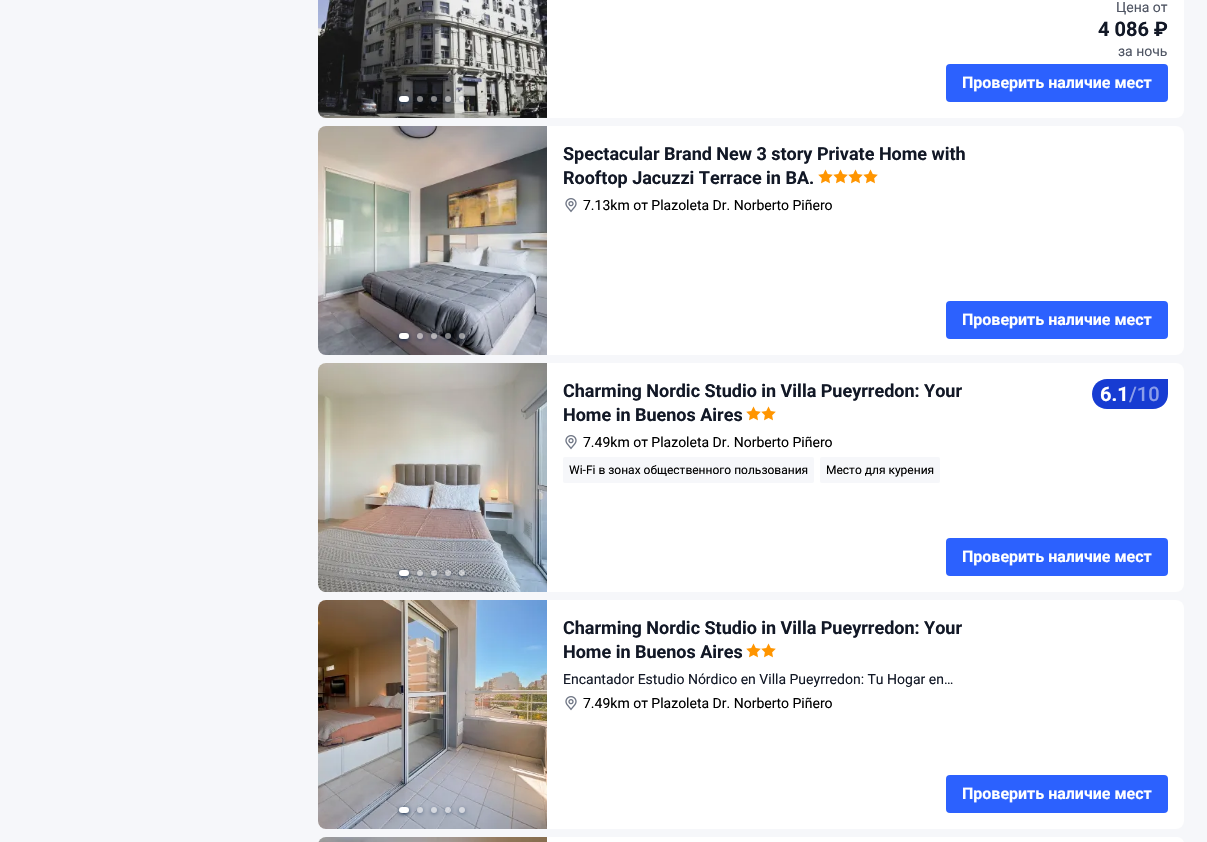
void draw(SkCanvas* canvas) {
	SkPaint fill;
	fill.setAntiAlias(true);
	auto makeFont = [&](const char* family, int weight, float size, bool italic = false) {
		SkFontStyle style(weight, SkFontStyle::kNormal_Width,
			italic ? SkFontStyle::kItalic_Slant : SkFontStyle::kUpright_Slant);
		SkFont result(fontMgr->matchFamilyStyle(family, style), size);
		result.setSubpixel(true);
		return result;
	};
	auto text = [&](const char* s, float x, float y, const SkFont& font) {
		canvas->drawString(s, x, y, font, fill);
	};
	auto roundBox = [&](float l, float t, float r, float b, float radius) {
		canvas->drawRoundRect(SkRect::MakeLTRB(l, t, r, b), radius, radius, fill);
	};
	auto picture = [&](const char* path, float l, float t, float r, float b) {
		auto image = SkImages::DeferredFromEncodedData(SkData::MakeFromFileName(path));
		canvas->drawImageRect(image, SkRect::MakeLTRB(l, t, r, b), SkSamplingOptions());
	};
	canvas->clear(0xFFF6F7FA);
	fill.setColor(0xFFFFFFFF);
	roundBox(318, -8, 1184, 118, 8);
	picture("image0.png", 318, 0, 547, 118);
	fill.setColor(0xFF0F294D);
	fill.setMaskFilter(SkMaskFilter::MakeBlur(kNormal_SkBlurStyle, 2));
	canvas->drawRoundRect(SkRect::MakeLTRB(399, 97, 409, 103), 3, 3, fill);
	fill.setMaskFilter(nullptr);
	fill.setColor(0xFFFFFFFF);
	roundBox(399, 96, 409, 102, 3);
	canvas->save();
	canvas->clipPath(SkPathBuilder(SkPathFillType::kEvenOdd).moveTo(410, 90).lineTo(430, 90).lineTo(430, 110).lineTo(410, 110).close().moveTo(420, 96).cubicTo(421.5f, 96, 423, 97.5f, 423, 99).cubicTo(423, 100.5f, 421.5f, 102, 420, 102).cubicTo(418.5f, 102, 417, 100.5f, 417, 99).cubicTo(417, 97.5f, 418.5f, 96, 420, 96).close().detach(), true);
	fill.setColor(0x800F294D);
	fill.setMaskFilter(SkMaskFilter::MakeBlur(kNormal_SkBlurStyle, 2));
	canvas->drawRoundRect(SkRect::MakeLTRB(417, 97, 423, 103), 3, 3, fill);
	fill.setMaskFilter(nullptr);
	canvas->restore();
	fill.setColor(0x80FFFFFF);
	canvas->drawCircle(420, 99, 3, fill);
	canvas->save();
	canvas->clipPath(SkPathBuilder(SkPathFillType::kEvenOdd).moveTo(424, 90).lineTo(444, 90).lineTo(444, 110).lineTo(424, 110).close().moveTo(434, 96).cubicTo(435.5f, 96, 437, 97.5f, 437, 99).cubicTo(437, 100.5f, 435.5f, 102, 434, 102).cubicTo(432.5f, 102, 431, 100.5f, 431, 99).cubicTo(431, 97.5f, 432.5f, 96, 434, 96).close().detach(), true);
	fill.setColor(0x800F294D);
	fill.setMaskFilter(SkMaskFilter::MakeBlur(kNormal_SkBlurStyle, 2));
	canvas->drawRoundRect(SkRect::MakeLTRB(431, 97, 437, 103), 3, 3, fill);
	fill.setMaskFilter(nullptr);
	canvas->restore();
	fill.setColor(0x80FFFFFF);
	canvas->drawCircle(434, 99, 3, fill);
	canvas->save();
	canvas->clipPath(SkPathBuilder(SkPathFillType::kEvenOdd).moveTo(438, 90).lineTo(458, 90).lineTo(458, 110).lineTo(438, 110).close().moveTo(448, 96).cubicTo(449.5f, 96, 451, 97.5f, 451, 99).cubicTo(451, 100.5f, 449.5f, 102, 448, 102).cubicTo(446.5f, 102, 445, 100.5f, 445, 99).cubicTo(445, 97.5f, 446.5f, 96, 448, 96).close().detach(), true);
	fill.setColor(0x800F294D);
	fill.setMaskFilter(SkMaskFilter::MakeBlur(kNormal_SkBlurStyle, 2));
	canvas->drawRoundRect(SkRect::MakeLTRB(445, 97, 451, 103), 3, 3, fill);
	fill.setMaskFilter(nullptr);
	canvas->restore();
	fill.setColor(0x80FFFFFF);
	canvas->drawCircle(448, 99, 3, fill);
	canvas->save();
	canvas->clipPath(SkPathBuilder(SkPathFillType::kEvenOdd).moveTo(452, 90).lineTo(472, 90).lineTo(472, 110).lineTo(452, 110).close().moveTo(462, 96).cubicTo(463.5f, 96, 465, 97.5f, 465, 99).cubicTo(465, 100.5f, 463.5f, 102, 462, 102).cubicTo(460.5f, 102, 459, 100.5f, 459, 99).cubicTo(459, 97.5f, 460.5f, 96, 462, 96).close().detach(), true);
	fill.setColor(0x800F294D);
	fill.setMaskFilter(SkMaskFilter::MakeBlur(kNormal_SkBlurStyle, 2));
	canvas->drawRoundRect(SkRect::MakeLTRB(459, 97, 465, 103), 3, 3, fill);
	fill.setMaskFilter(nullptr);
	canvas->restore();
	fill.setColor(0x80FFFFFF);
	canvas->drawCircle(462, 99, 3, fill);
	fill.setColor(0xFF2C61FE);
	roundBox(946, 64, 1168, 102, 4);
	fill.setColor(0xFFFFFFFF);
	roundBox(318, 126, 1184, 355, 8);
	picture("image1.png", 318, 126, 547, 355);
	fill.setColor(0xFF0F294D);
	fill.setMaskFilter(SkMaskFilter::MakeBlur(kNormal_SkBlurStyle, 2));
	canvas->drawRoundRect(SkRect::MakeLTRB(399, 334, 409, 340), 3, 3, fill);
	fill.setMaskFilter(nullptr);
	fill.setColor(0xFFFFFFFF);
	roundBox(399, 333, 409, 339, 3);
	canvas->save();
	canvas->clipPath(SkPathBuilder(SkPathFillType::kEvenOdd).moveTo(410, 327).lineTo(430, 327).lineTo(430, 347).lineTo(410, 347).close().moveTo(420, 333).cubicTo(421.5f, 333, 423, 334.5f, 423, 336).cubicTo(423, 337.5f, 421.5f, 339, 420, 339).cubicTo(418.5f, 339, 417, 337.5f, 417, 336).cubicTo(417, 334.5f, 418.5f, 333, 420, 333).close().detach(), true);
	fill.setColor(0x800F294D);
	fill.setMaskFilter(SkMaskFilter::MakeBlur(kNormal_SkBlurStyle, 2));
	canvas->drawRoundRect(SkRect::MakeLTRB(417, 334, 423, 340), 3, 3, fill);
	fill.setMaskFilter(nullptr);
	canvas->restore();
	fill.setColor(0x80FFFFFF);
	canvas->drawCircle(420, 336, 3, fill);
	canvas->save();
	canvas->clipPath(SkPathBuilder(SkPathFillType::kEvenOdd).moveTo(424, 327).lineTo(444, 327).lineTo(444, 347).lineTo(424, 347).close().moveTo(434, 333).cubicTo(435.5f, 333, 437, 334.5f, 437, 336).cubicTo(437, 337.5f, 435.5f, 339, 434, 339).cubicTo(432.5f, 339, 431, 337.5f, 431, 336).cubicTo(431, 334.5f, 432.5f, 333, 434, 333).close().detach(), true);
	fill.setColor(0x800F294D);
	fill.setMaskFilter(SkMaskFilter::MakeBlur(kNormal_SkBlurStyle, 2));
	canvas->drawRoundRect(SkRect::MakeLTRB(431, 334, 437, 340), 3, 3, fill);
	fill.setMaskFilter(nullptr);
	canvas->restore();
	fill.setColor(0x80FFFFFF);
	canvas->drawCircle(434, 336, 3, fill);
	canvas->save();
	canvas->clipPath(SkPathBuilder(SkPathFillType::kEvenOdd).moveTo(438, 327).lineTo(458, 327).lineTo(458, 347).lineTo(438, 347).close().moveTo(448, 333).cubicTo(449.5f, 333, 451, 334.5f, 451, 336).cubicTo(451, 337.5f, 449.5f, 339, 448, 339).cubicTo(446.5f, 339, 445, 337.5f, 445, 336).cubicTo(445, 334.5f, 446.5f, 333, 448, 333).close().detach(), true);
	fill.setColor(0x800F294D);
	fill.setMaskFilter(SkMaskFilter::MakeBlur(kNormal_SkBlurStyle, 2));
	canvas->drawRoundRect(SkRect::MakeLTRB(445, 334, 451, 340), 3, 3, fill);
	fill.setMaskFilter(nullptr);
	canvas->restore();
	fill.setColor(0x80FFFFFF);
	canvas->drawCircle(448, 336, 3, fill);
	canvas->save();
	canvas->clipPath(SkPathBuilder(SkPathFillType::kEvenOdd).moveTo(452, 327).lineTo(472, 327).lineTo(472, 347).lineTo(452, 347).close().moveTo(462, 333).cubicTo(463.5f, 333, 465, 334.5f, 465, 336).cubicTo(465, 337.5f, 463.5f, 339, 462, 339).cubicTo(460.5f, 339, 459, 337.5f, 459, 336).cubicTo(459, 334.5f, 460.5f, 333, 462, 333).close().detach(), true);
	fill.setColor(0x800F294D);
	fill.setMaskFilter(SkMaskFilter::MakeBlur(kNormal_SkBlurStyle, 2));
	canvas->drawRoundRect(SkRect::MakeLTRB(459, 334, 465, 340), 3, 3, fill);
	fill.setMaskFilter(nullptr);
	canvas->restore();
	fill.setColor(0x80FFFFFF);
	canvas->drawCircle(462, 336, 3, fill);
	picture("image2.png", 818, 169, 833, 184);
	picture("image2.png", 833, 169, 848, 184);
	picture("image2.png", 848, 169, 863, 184);
	picture("image2.png", 863, 169, 878, 184);
	picture("image3.png", 565, 198, 577, 213);
	fill.setColor(0xFF2C61FE);
	roundBox(946, 301, 1168, 339, 4);
	fill.setColor(0xFFFFFFFF);
	roundBox(318, 363, 1184, 592, 8);
	picture("image4.png", 318, 363, 547, 592);
	fill.setColor(0xFF0F294D);
	fill.setMaskFilter(SkMaskFilter::MakeBlur(kNormal_SkBlurStyle, 2));
	canvas->drawRoundRect(SkRect::MakeLTRB(399, 571, 409, 577), 3, 3, fill);
	fill.setMaskFilter(nullptr);
	fill.setColor(0xFFFFFFFF);
	roundBox(399, 570, 409, 576, 3);
	canvas->save();
	canvas->clipPath(SkPathBuilder(SkPathFillType::kEvenOdd).moveTo(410, 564).lineTo(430, 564).lineTo(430, 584).lineTo(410, 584).close().moveTo(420, 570).cubicTo(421.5f, 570, 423, 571.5f, 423, 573).cubicTo(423, 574.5f, 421.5f, 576, 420, 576).cubicTo(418.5f, 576, 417, 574.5f, 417, 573).cubicTo(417, 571.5f, 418.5f, 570, 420, 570).close().detach(), true);
	fill.setColor(0x800F294D);
	fill.setMaskFilter(SkMaskFilter::MakeBlur(kNormal_SkBlurStyle, 2));
	canvas->drawRoundRect(SkRect::MakeLTRB(417, 571, 423, 577), 3, 3, fill);
	fill.setMaskFilter(nullptr);
	canvas->restore();
	fill.setColor(0x80FFFFFF);
	canvas->drawCircle(420, 573, 3, fill);
	canvas->save();
	canvas->clipPath(SkPathBuilder(SkPathFillType::kEvenOdd).moveTo(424, 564).lineTo(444, 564).lineTo(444, 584).lineTo(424, 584).close().moveTo(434, 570).cubicTo(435.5f, 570, 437, 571.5f, 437, 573).cubicTo(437, 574.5f, 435.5f, 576, 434, 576).cubicTo(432.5f, 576, 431, 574.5f, 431, 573).cubicTo(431, 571.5f, 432.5f, 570, 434, 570).close().detach(), true);
	fill.setColor(0x800F294D);
	fill.setMaskFilter(SkMaskFilter::MakeBlur(kNormal_SkBlurStyle, 2));
	canvas->drawRoundRect(SkRect::MakeLTRB(431, 571, 437, 577), 3, 3, fill);
	fill.setMaskFilter(nullptr);
	canvas->restore();
	fill.setColor(0x80FFFFFF);
	canvas->drawCircle(434, 573, 3, fill);
	canvas->save();
	canvas->clipPath(SkPathBuilder(SkPathFillType::kEvenOdd).moveTo(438, 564).lineTo(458, 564).lineTo(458, 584).lineTo(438, 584).close().moveTo(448, 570).cubicTo(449.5f, 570, 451, 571.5f, 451, 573).cubicTo(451, 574.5f, 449.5f, 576, 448, 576).cubicTo(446.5f, 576, 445, 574.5f, 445, 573).cubicTo(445, 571.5f, 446.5f, 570, 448, 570).close().detach(), true);
	fill.setColor(0x800F294D);
	fill.setMaskFilter(SkMaskFilter::MakeBlur(kNormal_SkBlurStyle, 2));
	canvas->drawRoundRect(SkRect::MakeLTRB(445, 571, 451, 577), 3, 3, fill);
	fill.setMaskFilter(nullptr);
	canvas->restore();
	fill.setColor(0x80FFFFFF);
	canvas->drawCircle(448, 573, 3, fill);
	canvas->save();
	canvas->clipPath(SkPathBuilder(SkPathFillType::kEvenOdd).moveTo(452, 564).lineTo(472, 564).lineTo(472, 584).lineTo(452, 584).close().moveTo(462, 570).cubicTo(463.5f, 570, 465, 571.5f, 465, 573).cubicTo(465, 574.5f, 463.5f, 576, 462, 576).cubicTo(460.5f, 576, 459, 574.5f, 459, 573).cubicTo(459, 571.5f, 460.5f, 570, 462, 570).close().detach(), true);
	fill.setColor(0x800F294D);
	fill.setMaskFilter(SkMaskFilter::MakeBlur(kNormal_SkBlurStyle, 2));
	canvas->drawRoundRect(SkRect::MakeLTRB(459, 571, 465, 577), 3, 3, fill);
	fill.setMaskFilter(nullptr);
	canvas->restore();
	fill.setColor(0x80FFFFFF);
	canvas->drawCircle(462, 573, 3, fill);
	picture("image2.png", 746, 406, 761, 421);
	picture("image2.png", 761, 406, 776, 421);
	picture("image3.png", 565, 435, 577, 450);
	fill.setColor(0xFFF6F7FA);
	roundBox(563, 457, 814, 483, 2);
	roundBox(820, 457, 940, 483, 2);
	fill.setColor(0xFF173CD2);
	canvas->drawPath(SkPathBuilder().moveTo(1107, 379).lineTo(1168, 379).lineTo(1168, 394).cubicTo(1168, 402.5f, 1161.5f, 409, 1153, 409).lineTo(1107, 409).cubicTo(1098.5f, 409, 1092, 402.5f, 1092, 394).cubicTo(1092, 385.5f, 1098.5f, 379, 1107, 379).close().detach(), fill);
	fill.setColor(0xFF2C61FE);
	roundBox(946, 538, 1168, 576, 4);
	fill.setColor(0xFFFFFFFF);
	roundBox(318, 600, 1184, 829, 8);
	picture("image5.png", 318, 600, 547, 829);
	fill.setColor(0xFF0F294D);
	fill.setMaskFilter(SkMaskFilter::MakeBlur(kNormal_SkBlurStyle, 2));
	canvas->drawRoundRect(SkRect::MakeLTRB(399, 808, 409, 814), 3, 3, fill);
	fill.setMaskFilter(nullptr);
	fill.setColor(0xFFFFFFFF);
	roundBox(399, 807, 409, 813, 3);
	canvas->save();
	canvas->clipPath(SkPathBuilder(SkPathFillType::kEvenOdd).moveTo(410, 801).lineTo(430, 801).lineTo(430, 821).lineTo(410, 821).close().moveTo(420, 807).cubicTo(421.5f, 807, 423, 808.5f, 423, 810).cubicTo(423, 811.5f, 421.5f, 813, 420, 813).cubicTo(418.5f, 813, 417, 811.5f, 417, 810).cubicTo(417, 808.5f, 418.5f, 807, 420, 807).close().detach(), true);
	fill.setColor(0x800F294D);
	fill.setMaskFilter(SkMaskFilter::MakeBlur(kNormal_SkBlurStyle, 2));
	canvas->drawRoundRect(SkRect::MakeLTRB(417, 808, 423, 814), 3, 3, fill);
	fill.setMaskFilter(nullptr);
	canvas->restore();
	fill.setColor(0x80FFFFFF);
	canvas->drawCircle(420, 810, 3, fill);
	canvas->save();
	canvas->clipPath(SkPathBuilder(SkPathFillType::kEvenOdd).moveTo(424, 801).lineTo(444, 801).lineTo(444, 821).lineTo(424, 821).close().moveTo(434, 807).cubicTo(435.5f, 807, 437, 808.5f, 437, 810).cubicTo(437, 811.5f, 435.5f, 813, 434, 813).cubicTo(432.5f, 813, 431, 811.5f, 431, 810).cubicTo(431, 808.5f, 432.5f, 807, 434, 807).close().detach(), true);
	fill.setColor(0x800F294D);
	fill.setMaskFilter(SkMaskFilter::MakeBlur(kNormal_SkBlurStyle, 2));
	canvas->drawRoundRect(SkRect::MakeLTRB(431, 808, 437, 814), 3, 3, fill);
	fill.setMaskFilter(nullptr);
	canvas->restore();
	fill.setColor(0x80FFFFFF);
	canvas->drawCircle(434, 810, 3, fill);
	canvas->save();
	canvas->clipPath(SkPathBuilder(SkPathFillType::kEvenOdd).moveTo(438, 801).lineTo(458, 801).lineTo(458, 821).lineTo(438, 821).close().moveTo(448, 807).cubicTo(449.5f, 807, 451, 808.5f, 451, 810).cubicTo(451, 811.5f, 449.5f, 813, 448, 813).cubicTo(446.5f, 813, 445, 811.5f, 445, 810).cubicTo(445, 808.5f, 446.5f, 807, 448, 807).close().detach(), true);
	fill.setColor(0x800F294D);
	fill.setMaskFilter(SkMaskFilter::MakeBlur(kNormal_SkBlurStyle, 2));
	canvas->drawRoundRect(SkRect::MakeLTRB(445, 808, 451, 814), 3, 3, fill);
	fill.setMaskFilter(nullptr);
	canvas->restore();
	fill.setColor(0x80FFFFFF);
	canvas->drawCircle(448, 810, 3, fill);
	canvas->save();
	canvas->clipPath(SkPathBuilder(SkPathFillType::kEvenOdd).moveTo(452, 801).lineTo(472, 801).lineTo(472, 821).lineTo(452, 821).close().moveTo(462, 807).cubicTo(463.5f, 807, 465, 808.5f, 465, 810).cubicTo(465, 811.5f, 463.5f, 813, 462, 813).cubicTo(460.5f, 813, 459, 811.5f, 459, 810).cubicTo(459, 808.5f, 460.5f, 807, 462, 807).close().detach(), true);
	fill.setColor(0x800F294D);
	fill.setMaskFilter(SkMaskFilter::MakeBlur(kNormal_SkBlurStyle, 2));
	canvas->drawRoundRect(SkRect::MakeLTRB(459, 808, 465, 814), 3, 3, fill);
	fill.setMaskFilter(nullptr);
	canvas->restore();
	fill.setColor(0x80FFFFFF);
	canvas->drawCircle(462, 810, 3, fill);
	picture("image2.png", 746, 643, 761, 658);
	picture("image2.png", 761, 643, 776, 658);
	picture("image3.png", 565, 696, 577, 711);
	fill.setColor(0xFF2C61FE);
	roundBox(946, 775, 1168, 813, 4);
	fill.setColor(0xFFFFFFFF);
	roundBox(318, 837, 1184, 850, 8);
	picture("image6.png", 318, 837, 547, 842);
	auto font1 = makeFont("Roboto", 400, 14);
	fill.setColor(0xFF4F5563);
	text("Цена от", 1116, 12, font1);
	auto font2 = makeFont("Roboto", 700, 20);
	fill.setColor(0xFF121826);
	text("4 086 ₽", 1098, 36, font2);
	fill.setColor(0xFF4F5563);
	text("за ночь", 1118, 56, font1);
	auto font3 = makeFont("Roboto", 700, 16);
	fill.setColor(0xFFFFFFFF);
	text("Проверить наличие мест", 962, 88, font3);
	auto font4 = makeFont("Roboto", 700, 18);
	fill.setColor(0xFF121826);
	text("Spectacular Brand New 3 story Private Home with", 563, 160, font4);
	text("Rooftop Jacuzzi Terrace in BA.", 563, 184, font4);
	fill.setColor(0xFF000000);
	text("7.13km от Plazoleta Dr. Norberto Piñero", 583, 210, font1);
	fill.setColor(0xFFFFFFFF);
	text("Проверить наличие мест", 962, 325, font3);
	fill.setColor(0xFF121826);
	text("Charming Nordic Studio in Villa Pueyrredon: Your", 563, 397, font4);
	text("Home in Buenos Aires", 563, 421, font4);
	fill.setColor(0xFF000000);
	text("7.49km от Plazoleta Dr. Norberto Piñero", 583, 447, font1);
	auto font5 = makeFont("Roboto", 400, 12);
	text("Wi-Fi в зонах общественного пользования", 569, 474, font5);
	text("Место для курения", 826, 474, font5);
	fill.setColor(0xFFFFFFFF);
	text("6.1", 1100, 401, font2);
	auto font6 = makeFont("Roboto", 500, 20);
	fill.setColor(0xFF8B9EE9);
	text("/10", 1129, 401, font6);
	fill.setColor(0xFFFFFFFF);
	text("Проверить наличие мест", 962, 562, font3);
	fill.setColor(0xFF121826);
	text("Charming Nordic Studio in Villa Pueyrredon: Your", 563, 634, font4);
	text("Home in Buenos Aires", 563, 658, font4);
	text("Encantador Estudio Nórdico en Villa Pueyrredon: Tu Hogar en…", 563, 684, font1);
	fill.setColor(0xFF000000);
	text("7.49km от Plazoleta Dr. Norberto Piñero", 583, 708, font1);
	fill.setColor(0xFFFFFFFF);
	text("Проверить наличие мест", 962, 799, font3);
}
